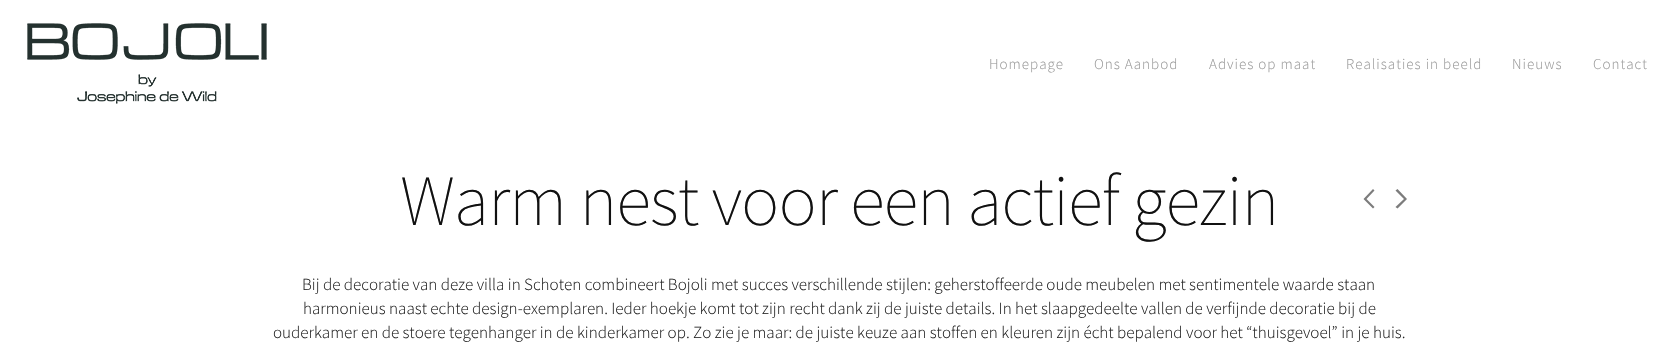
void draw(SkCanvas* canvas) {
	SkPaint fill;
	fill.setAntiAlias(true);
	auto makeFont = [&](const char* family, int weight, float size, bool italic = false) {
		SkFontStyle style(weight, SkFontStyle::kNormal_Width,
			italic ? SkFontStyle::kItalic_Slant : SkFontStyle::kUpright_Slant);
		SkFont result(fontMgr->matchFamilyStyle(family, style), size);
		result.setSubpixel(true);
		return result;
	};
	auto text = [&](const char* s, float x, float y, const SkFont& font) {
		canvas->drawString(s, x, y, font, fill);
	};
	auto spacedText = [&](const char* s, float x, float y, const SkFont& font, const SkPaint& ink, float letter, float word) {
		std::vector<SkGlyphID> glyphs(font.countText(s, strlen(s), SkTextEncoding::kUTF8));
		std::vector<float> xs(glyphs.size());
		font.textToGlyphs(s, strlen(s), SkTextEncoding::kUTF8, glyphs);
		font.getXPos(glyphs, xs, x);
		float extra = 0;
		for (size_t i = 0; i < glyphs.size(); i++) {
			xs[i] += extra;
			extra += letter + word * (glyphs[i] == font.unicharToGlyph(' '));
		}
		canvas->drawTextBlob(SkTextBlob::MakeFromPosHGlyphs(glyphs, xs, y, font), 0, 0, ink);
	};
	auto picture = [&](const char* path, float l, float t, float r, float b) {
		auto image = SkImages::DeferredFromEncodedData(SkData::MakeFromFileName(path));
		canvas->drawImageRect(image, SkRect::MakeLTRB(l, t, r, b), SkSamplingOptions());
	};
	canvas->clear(0xFFFFFFFF);
	picture("image0.png", 27, 23, 267, 104);
	fill.setColor(0xFF7C7C7C);
	canvas->drawPath(SkPathBuilder().moveTo(1397.5f, 208.5f).lineTo(1395.5f, 207).lineTo(1404, 199).lineTo(1395.5f, 190.5f).lineTo(1397.5f, 189).lineTo(1407, 199).close().moveTo(1373, 208.5f).lineTo(1363.5f, 199).lineTo(1373, 189).lineTo(1374.5f, 190.5f).lineTo(1366.5f, 199).lineTo(1374.5f, 207).close().detach(), fill);
	auto font1 = makeFont("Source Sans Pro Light", 300, 15);
	fill.setColor(0xFF999999);
	spacedText("Homepage", 989, 69, font1, fill, 1, 0);
	spacedText("Ons Aanbod", 1094, 69, font1, fill, 1, 0);
	spacedText("Advies op maat", 1209, 69, font1, fill, 1, 0);
	spacedText("Realisaties in beeld", 1346, 69, font1, fill, 1, 0);
	spacedText("Nieuws", 1512, 69, font1, fill, 1, 0);
	spacedText("Contact", 1593, 69, font1, fill, 1, 0);
	auto font2 = makeFont("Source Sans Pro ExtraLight", 200, 72);
	fill.setColor(0xFF111111);
	spacedText("Warm nest voor een actief gezin", 400, 225, font2, fill, -1, 0);
	auto font3 = makeFont("Source Sans Pro Light", 300, 17);
	fill.setColor(0xFF252525);
	text("Bij de decoratie van deze villa in Schoten combineert Bojoli met succes verschillende stijlen: geherstoffeerde oude meubelen met sentimentele waarde staan", 302, 290, font3);
	text("harmonieus naast echte design-exemplaren. Ieder hoekje komt tot zijn recht dank zij de juiste details. In het slaapgedeelte vallen de verfijnde decoratie bij de", 303, 314, font3);
	text("ouderkamer en de stoere tegenhanger in de kinderkamer op. Zo zie je maar: de juiste keuze aan stoffen en kleuren zijn écht bepalend voor het “thuisgevoel” in je huis.", 273, 338, font3);
}
